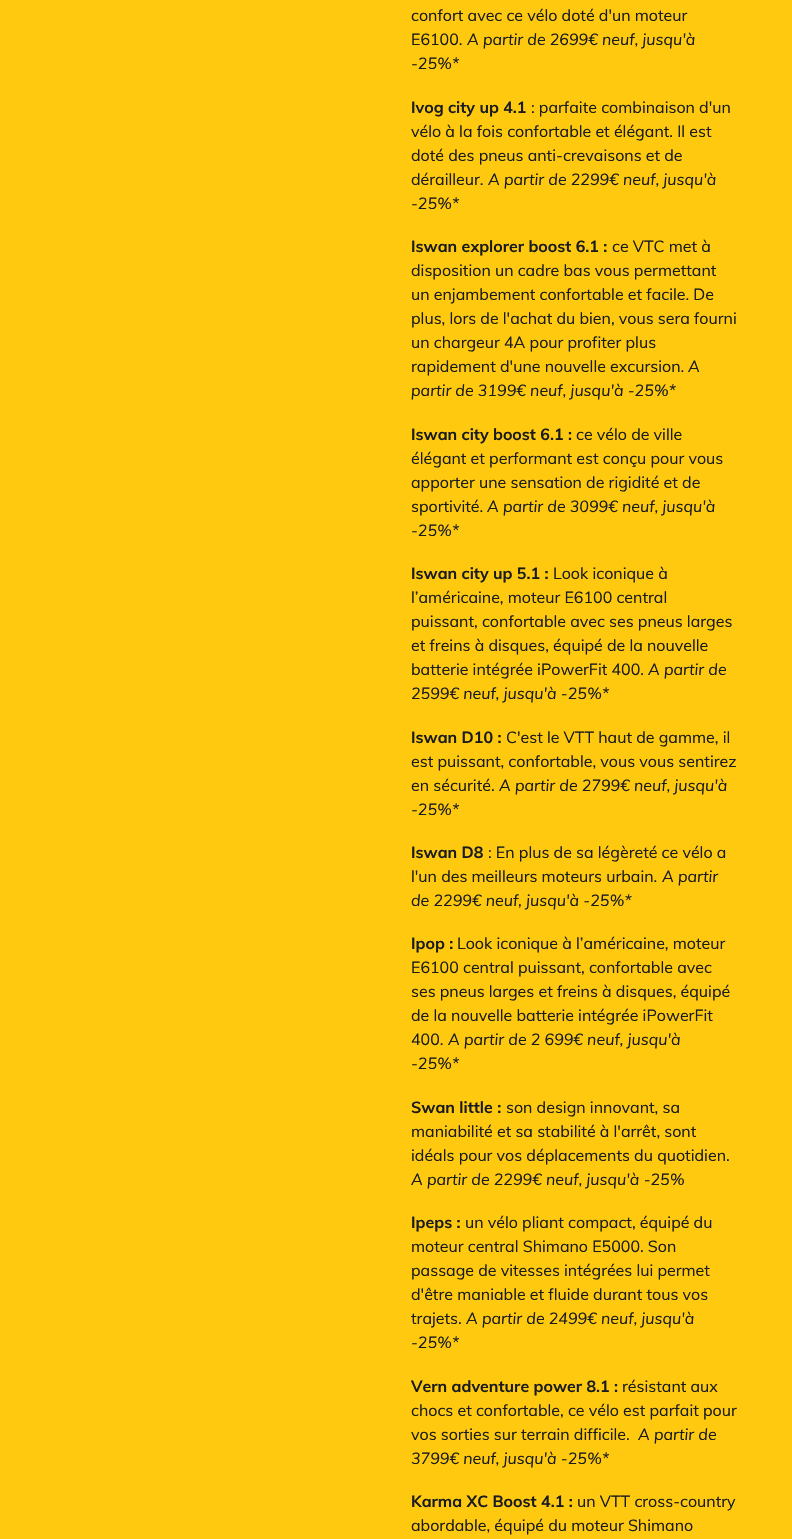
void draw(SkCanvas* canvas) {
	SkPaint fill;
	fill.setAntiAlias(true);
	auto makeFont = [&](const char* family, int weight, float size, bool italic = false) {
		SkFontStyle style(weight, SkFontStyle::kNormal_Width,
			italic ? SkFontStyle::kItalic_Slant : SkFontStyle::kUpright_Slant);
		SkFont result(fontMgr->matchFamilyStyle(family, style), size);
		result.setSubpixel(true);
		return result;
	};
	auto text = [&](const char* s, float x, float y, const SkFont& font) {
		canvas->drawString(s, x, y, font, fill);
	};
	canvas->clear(0xFFFFC90F);
	auto font1 = makeFont("Muli", 400, 16);
	fill.setColor(0xFF191B1E);
	text("confort avec ce vélo doté d'un moteur", 411, 21, font1);
	text("E6100.", 411, 45, font1);
	auto font2 = makeFont("Muli", 400, 16, true);
	text("A partir de 2699€ neuf, jusqu'à", 467, 45, font2);
	text("-25%*", 411, 69, font2);
	auto font3 = makeFont("Muli", 700, 16);
	text("Ivog city up 4.1", 411, 113, font3);
	text(": parfaite combinaison d'un", 531, 113, font1);
	text("vélo à la fois confortable et élégant. Il est", 411, 137, font1);
	text("doté des pneus anti-crevaisons et de", 411, 161, font1);
	text("dérailleur.", 411, 185, font1);
	text("A partir de 2299€ neuf, jusqu'à", 488, 185, font2);
	text("-25%*", 411, 209, font2);
	text("Iswan explorer boost 6.1 :", 411, 252, font3);
	text("ce VTC met à", 612, 252, font1);
	text("disposition un cadre bas vous permettant", 411, 276, font1);
	text("un enjambement confortable et facile. De", 411, 300, font1);
	text("plus, lors de l'achat du bien, vous sera fourni", 411, 324, font1);
	text("un chargeur 4A pour profiter plus", 411, 348, font1);
	text("rapidement d'une nouvelle excursion.", 411, 372, font1);
	text("A", 688, 372, font2);
	text("partir de 3199€ neuf, jusqu'à -25%*", 411, 396, font2);
	text("Iswan city boost 6.1 :", 411, 440, font3);
	text("ce vélo de ville", 576, 440, font1);
	text("élégant et performant est conçu pour vous", 411, 464, font1);
	text("apporter une sensation de rigidité et de", 411, 488, font1);
	text("sportivité.", 411, 512, font1);
	text("A partir de 3099€ neuf, jusqu'à", 487, 512, font2);
	text("-25%*", 411, 536, font2);
	text("Iswan city up 5.1 :", 411, 579, font3);
	text("Look iconique à", 553, 579, font1);
	text("l’américaine, moteur E6100 central", 411, 603, font1);
	text("puissant, confortable avec ses pneus larges", 411, 627, font1);
	text("et freins à disques, équipé de la nouvelle", 411, 651, font1);
	text("batterie intégrée iPowerFit 400.", 411, 675, font1);
	text("A partir de", 648, 675, font2);
	text("2599€ neuf, jusqu'à -25%*", 411, 699, font2);
	text("Iswan D10 :", 411, 743, font3);
	text("C'est le VTT haut de gamme, il", 506, 743, font1);
	text("est puissant, confortable, vous vous sentirez", 411, 767, font1);
	text("en sécurité.", 411, 791, font1);
	text("A partir de 2799€ neuf, jusqu'à", 499, 791, font2);
	text("-25%*", 411, 815, font2);
	text("Iswan D8", 411, 858, font3);
	text(": En plus de sa légèreté ce vélo a", 488, 858, font1);
	text("l'un des meilleurs moteurs urbain.", 411, 882, font1);
	text("A partir", 662, 882, font2);
	text("de 2299€ neuf, jusqu'à -25%*", 411, 906, font2);
	text("Ipop :", 411, 949, font3);
	text("Look iconique à l’américaine, moteur", 457, 949, font1);
	text("E6100 central puissant, confortable avec", 411, 973, font1);
	text("ses pneus larges et freins à disques, équipé", 411, 997, font1);
	text("de la nouvelle batterie intégrée iPowerFit", 411, 1021, font1);
	text("400.", 411, 1045, font1);
	text("A partir de 2 699€ neuf, jusqu'à", 448, 1045, font2);
	text("-25%*", 411, 1069, font2);
	text("Swan little :", 411, 1113, font3);
	text("son design innovant, sa", 506, 1113, font1);
	text("maniabilité et sa stabilité à l'arrêt, sont", 411, 1137, font1);
	text("idéals pour vos déplacements du quotidien.", 411, 1161, font1);
	text("A partir de 2299€ neuf, jusqu'à -25%", 411, 1185, font2);
	text("Ipeps :", 411, 1228, font3);
	text("un vélo pliant compact, équipé du", 465, 1228, font1);
	text("moteur central Shimano E5000. Son", 411, 1252, font1);
	text("passage de vitesses intégrées lui permet", 411, 1276, font1);
	text("d'être maniable et fluide durant tous vos", 411, 1300, font1);
	text("trajets.", 411, 1324, font1);
	text("A partir de 2499€ neuf, jusqu'à", 466, 1324, font2);
	text("-25%*", 411, 1348, font2);
	text("Vern adventure power 8.1 :", 411, 1392, font3);
	text("résistant aux", 622, 1392, font1);
	text("chocs et confortable, ce vélo est parfait pour", 411, 1416, font1);
	text("vos sorties sur terrain difficile.", 411, 1440, font1);
	text("A partir de", 638, 1440, font2);
	text("3799€ neuf, jusqu'à -25%*", 411, 1464, font2);
	text("Karma XC Boost 4.1 :", 411, 1507, font3);
	text("un VTT cross-country", 577, 1507, font1);
	text("abordable, équipé du moteur Shimano", 411, 1531, font1);
}
